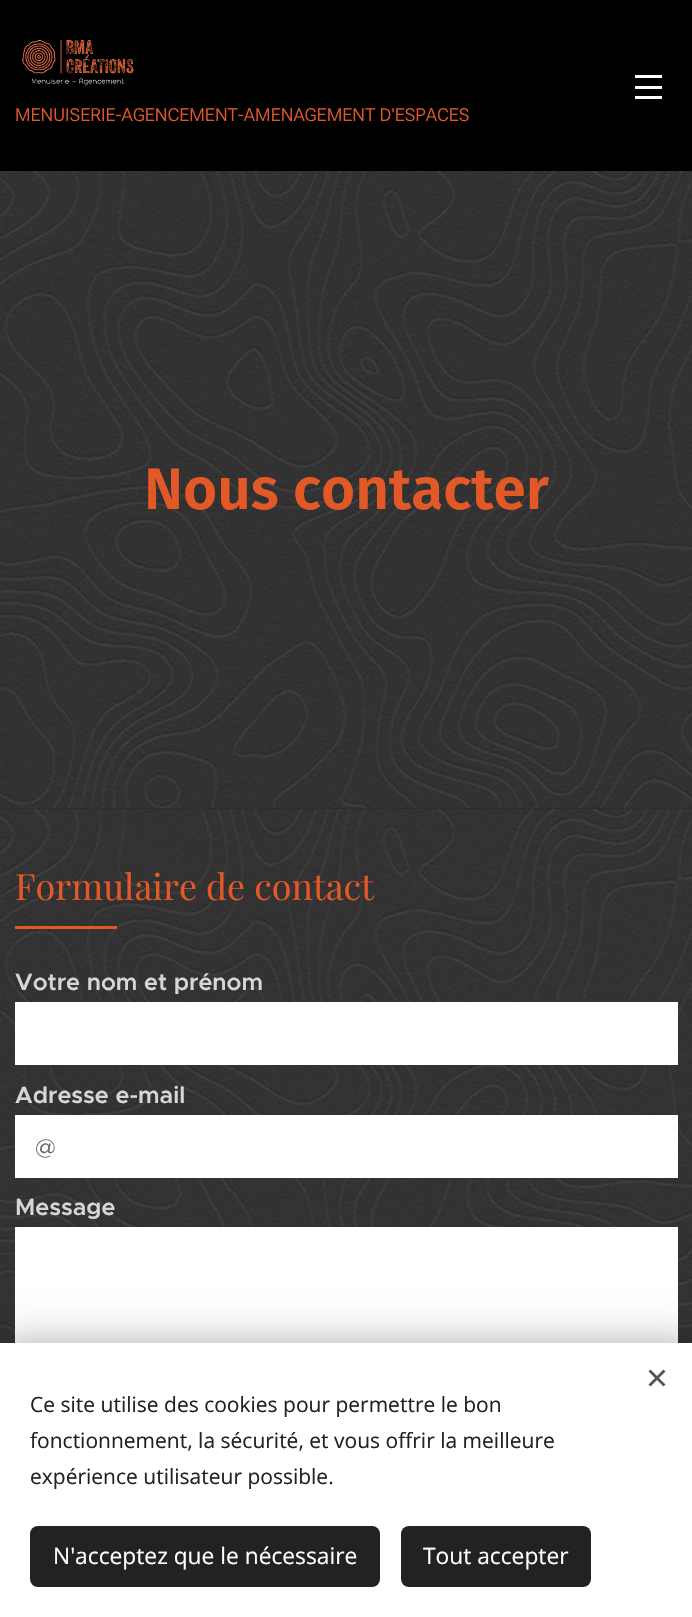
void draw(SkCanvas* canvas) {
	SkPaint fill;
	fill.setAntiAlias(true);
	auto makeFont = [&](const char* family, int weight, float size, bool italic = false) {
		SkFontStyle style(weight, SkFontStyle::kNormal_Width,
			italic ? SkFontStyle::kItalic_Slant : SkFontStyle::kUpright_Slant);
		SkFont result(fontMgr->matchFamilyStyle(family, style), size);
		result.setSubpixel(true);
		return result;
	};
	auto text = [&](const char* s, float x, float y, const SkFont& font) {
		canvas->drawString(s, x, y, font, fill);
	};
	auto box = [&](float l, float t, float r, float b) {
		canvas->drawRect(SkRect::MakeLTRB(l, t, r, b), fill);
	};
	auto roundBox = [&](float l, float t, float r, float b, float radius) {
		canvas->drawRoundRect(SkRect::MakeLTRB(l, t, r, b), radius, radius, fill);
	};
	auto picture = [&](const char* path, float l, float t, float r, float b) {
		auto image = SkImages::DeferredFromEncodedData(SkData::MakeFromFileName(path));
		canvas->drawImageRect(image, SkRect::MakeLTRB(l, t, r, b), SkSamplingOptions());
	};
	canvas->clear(0xFF272727);
	fill.setColor(0xFF000000);
	box(0, 0, 692, 171);
	fill.setColor(0xFFFFFFFF);
	box(635, 86, 662, 89);
	box(635, 75, 662, 78);
	box(635, 96, 662, 99);
	picture("image0.png", 22, 40, 134, 86);
	picture("image1.png", 0, 171, 692, 809);
	picture("image2.png", 0, 808, 692, 1343);
	fill.setColor(0xFFE25827);
	box(15, 926, 117, 929);
	fill.setColor(0xFFFFFFFF);
	box(15, 1002, 678, 1065);
	box(15, 1115, 678, 1178);
	box(15, 1227, 678, 1343);
	fill.setColor(0x54000000);
	fill.setMaskFilter(SkMaskFilter::MakeBlur(kNormal_SkBlurStyle, 19));
	canvas->drawRect(SkRect::MakeLTRB(0, 1343, 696, 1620), fill);
	fill.setMaskFilter(nullptr);
	fill.setColor(0xFFFFFFFF);
	box(0, 1343, 692, 1617);
	fill.setColor(0xFF555555);
	canvas->drawPath(SkPathBuilder().moveTo(648.5f, 1384.5f).lineTo(663.5f, 1369.5f).lineTo(665.5f, 1371.5f).lineTo(650.5f, 1386.5f).close().detach(), fill);
	canvas->drawPath(SkPathBuilder().moveTo(650.5f, 1369.5f).lineTo(665.5f, 1384.5f).lineTo(663.5f, 1386.5f).lineTo(648.5f, 1371.5f).close().detach(), fill);
	fill.setColor(0xFF222222);
	roundBox(30, 1526, 380, 1587, 8);
	roundBox(401, 1526, 591, 1587, 8);
	auto font1 = makeFont("Roboto Flex", 300, 18);
	fill.setColor(0xFFE25827);
	text("MENUISERIE-AGENCEMENT-AMENAGEMENT D'ESPACES", 15, 121, font1);
	auto font2 = makeFont("Fira Sans", 600, 58.5f);
	text("Nous contacter", 144, 509, font2);
	auto font3 = makeFont("Playfair Display", 400, 36);
	text("Formulaire de contact", 15, 900, font3);
	auto font4 = makeFont("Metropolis", 600, 23.5f);
	fill.setColor(0xFFD6D6D6);
	text("Votre nom et prénom", 15, 990, font4);
	text("Adresse e-mail", 15, 1103, font4);
	auto font5 = makeFont("Metropolis", 400, 23.5f);
	fill.setColor(0xFF666666);
	text("@", 35, 1155, font5);
	fill.setColor(0xFFD6D6D6);
	text("Message", 15, 1215, font4);
	auto font6 = makeFont("Open Sans", 400, 21);
	fill.setColor(0xFF222222);
	text("Ce site utilise des cookies pour permettre le bon", 30, 1412, font6);
	text("fonctionnement, la sécurité, et vous offrir la meilleure", 30, 1448, font6);
	text("expérience utilisateur possible.", 30, 1484, font6);
	auto font7 = makeFont("Open Sans", 400, 22.75f);
	fill.setColor(0xFFFFFFFF);
	text("N'acceptez que le nécessaire", 53, 1564, font7);
	text("Tout accepter", 423, 1564, font7);
}
